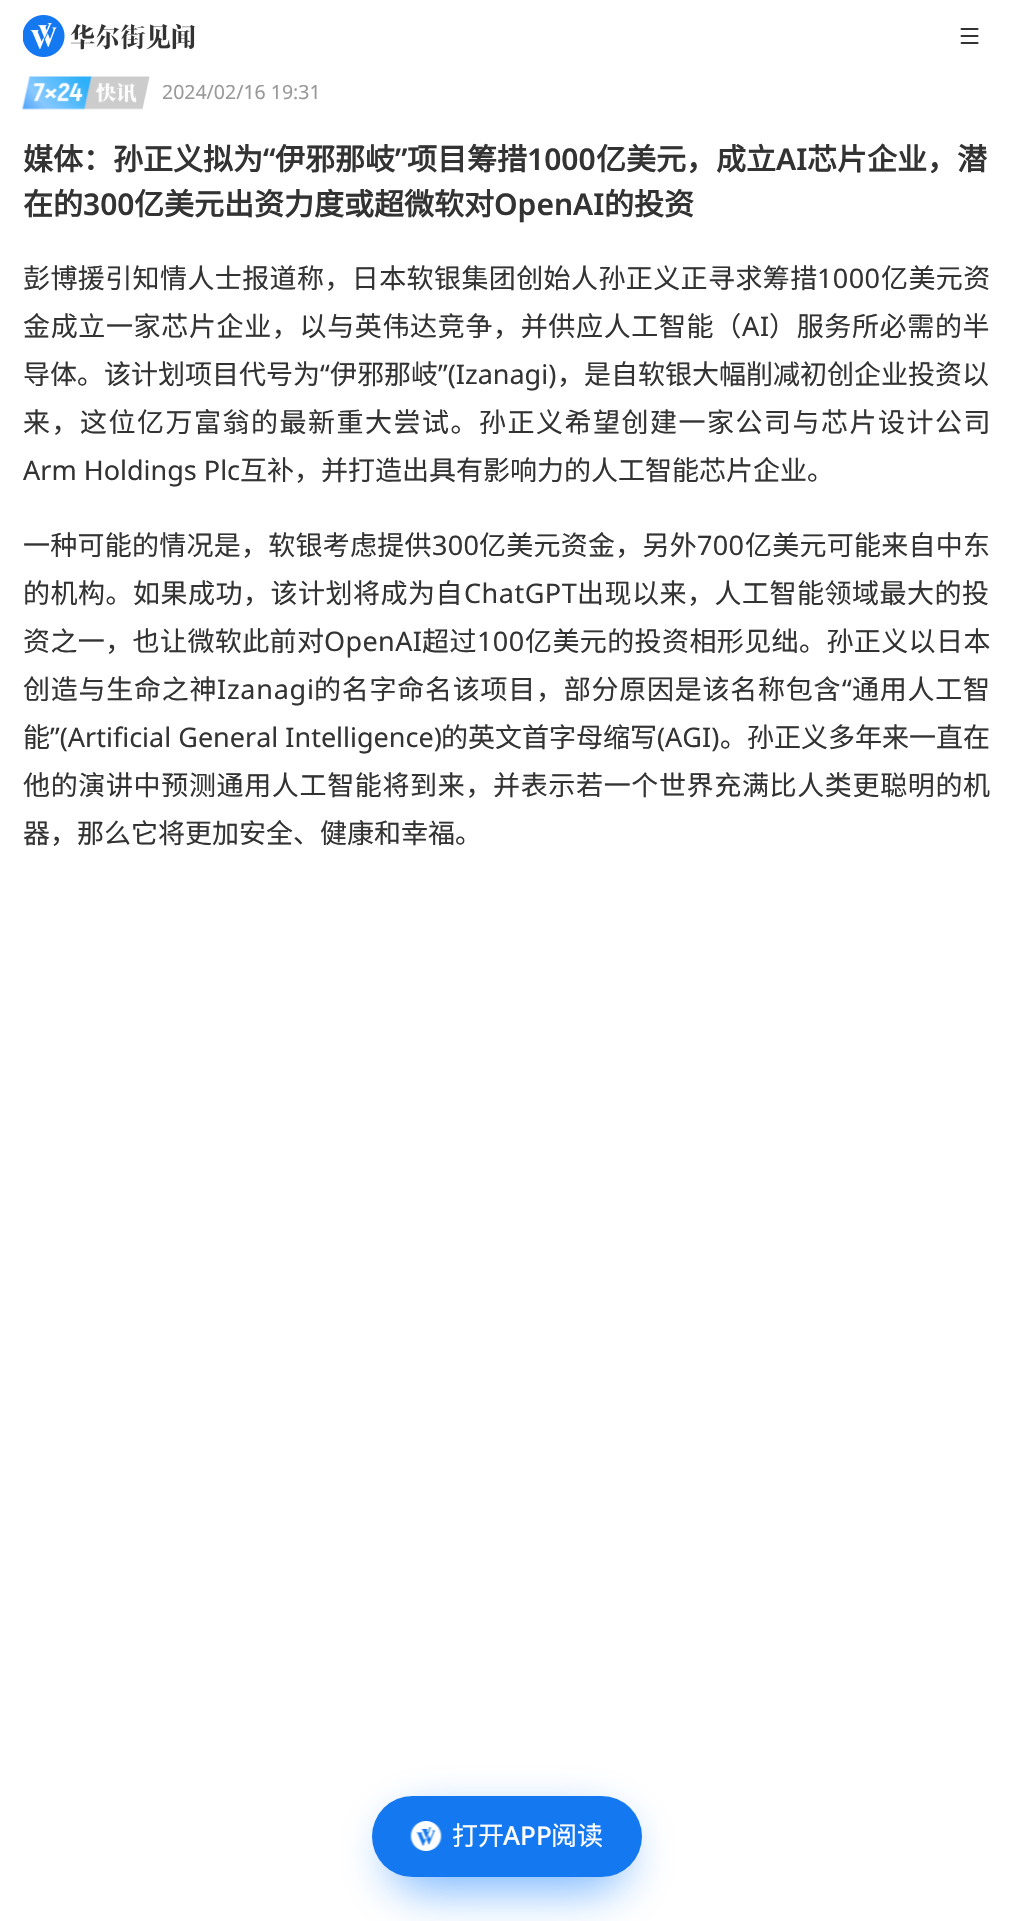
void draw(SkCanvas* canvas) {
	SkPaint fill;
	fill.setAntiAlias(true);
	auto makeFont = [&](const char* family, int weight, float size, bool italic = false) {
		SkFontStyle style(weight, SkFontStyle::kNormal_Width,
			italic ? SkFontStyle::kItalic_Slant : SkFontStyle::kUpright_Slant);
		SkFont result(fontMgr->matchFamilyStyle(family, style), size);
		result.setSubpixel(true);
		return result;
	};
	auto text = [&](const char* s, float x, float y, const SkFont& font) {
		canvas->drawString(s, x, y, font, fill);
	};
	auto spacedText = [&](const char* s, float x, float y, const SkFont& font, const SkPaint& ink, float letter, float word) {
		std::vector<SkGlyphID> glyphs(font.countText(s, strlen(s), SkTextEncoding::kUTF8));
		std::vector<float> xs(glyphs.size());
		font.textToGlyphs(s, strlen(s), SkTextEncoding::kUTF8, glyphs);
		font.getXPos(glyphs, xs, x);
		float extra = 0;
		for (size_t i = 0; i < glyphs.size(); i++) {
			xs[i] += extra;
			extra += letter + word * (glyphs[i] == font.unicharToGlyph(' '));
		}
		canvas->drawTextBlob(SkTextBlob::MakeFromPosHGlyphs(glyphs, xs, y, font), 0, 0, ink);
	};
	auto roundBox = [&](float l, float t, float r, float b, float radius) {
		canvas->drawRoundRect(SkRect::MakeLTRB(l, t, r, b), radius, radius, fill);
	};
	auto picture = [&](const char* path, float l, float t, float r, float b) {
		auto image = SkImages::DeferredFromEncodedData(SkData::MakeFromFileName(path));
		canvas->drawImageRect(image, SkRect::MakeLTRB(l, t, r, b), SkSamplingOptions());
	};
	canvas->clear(0xFFFFFFFF);
	picture("image0.png", 23, 15, 65, 57);
	picture("image1.png", 71, 24, 195, 50);
	picture("image2.png", 960, 28, 979, 44);
	picture("image3.png", 22, 76, 150, 110);
	fill.setColor(0x991781FF);
	fill.setMaskFilter(SkMaskFilter::MakeBlur(kNormal_SkBlurStyle, 24));
	canvas->drawRoundRect(SkRect::MakeLTRB(389, 1818, 627, 1889), 35.5f, 35.5f, fill);
	fill.setMaskFilter(nullptr);
	fill.setColor(0xFF1478F0);
	roundBox(372, 1796, 642, 1877, 40.5f);
	picture("image4.png", 410, 1821, 442, 1851);
	auto font1 = makeFont("Noto Sans", 400, 19.5f);
	fill.setColor(0xFF999999);
	text("2024/02/16 19:31", 162, 99, font1);
	auto font2 = makeFont("Noto Sans CJK SC", 700, 30);
	fill.setColor(0xFF333333);
	text("媒体：孙正义拟为", 23, 170, font2);
	auto font3 = makeFont("Noto Sans", 600, 30);
	text("“", 263, 170, font3);
	text("伊邪那岐", 275, 170, font2);
	text("”", 395, 170, font3);
	text("项目筹措", 407, 170, font2);
	text("1000", 527, 170, font3);
	text("亿美元，成立", 596, 170, font2);
	text("AI", 776, 170, font3);
	text("芯片企业，潜", 807, 170, font2);
	text("在的", 23, 215, font2);
	text("300", 83, 215, font3);
	text("亿美元出资力度或超微软对", 134, 215, font2);
	text("OpenAI", 494, 215, font3);
	text("的投资", 604, 215, font2);
	auto font4 = makeFont("Noto Sans CJK SC", 400, 27);
	spacedText("彭博援引知情人士报道称，日本软银集团创始人孙正义正寻求筹措", 23, 288, font4, fill, 0.4f, 0);
	auto font5 = makeFont("Noto Sans", 400, 27);
	spacedText("1000", 817, 288, font5, fill, 0.4f, 0);
	spacedText("亿美元资", 881, 288, font4, fill, 0.4f, 0);
	spacedText("金成立一家芯片企业，以与英伟达竞争，并供应人工智能（", 23, 336, font4, fill, 0.65f, 0);
	spacedText("AI", 742, 336, font5, fill, 0.65f, 0);
	spacedText("）服务所必需的半", 769, 336, font4, fill, 0.65f, 0);
	text("导体。该计划项目代号为", 23, 384, font4);
	text("“", 320, 384, font5);
	text("伊邪那岐", 330, 384, font4);
	text("”(Izanagi)", 438, 384, font5);
	text("，是自软银大幅削减初创企业投资以", 557, 384, font4);
	spacedText("来，这位亿万富翁的最新重大尝试。孙正义希望创建一家公司与芯片设计公司", 23, 432, font4, fill, 1.5f, 0);
	text("Arm Holdings Plc", 23, 480, font5);
	text("互补，并打造出具有影响力的人工智能芯片企业。", 240, 480, font4);
	spacedText("一种可能的情况是，软银考虑提供", 23, 555, font4, fill, 0.25f, 0);
	spacedText("300", 432, 555, font5, fill, 0.25f, 0);
	spacedText("亿美元资金，另外", 479, 555, font4, fill, 0.25f, 0);
	spacedText("700", 697, 555, font5, fill, 0.25f, 0);
	spacedText("亿美元可能来自中东", 745, 555, font4, fill, 0.25f, 0);
	spacedText("的机构。如果成功，该计划将成为自", 23, 603, font4, fill, 0.5f, 0);
	spacedText("ChatGPT", 464, 603, font5, fill, 0.5f, 0);
	spacedText("出现以来，人工智能领域最大的投", 577, 603, font4, fill, 0.5f, 0);
	spacedText("资之一，也让微软此前对", 23, 651, font4, fill, 0.4f, 0);
	spacedText("OpenAI", 324, 651, font5, fill, 0.4f, 0);
	spacedText("超过", 422, 651, font4, fill, 0.4f, 0);
	spacedText("100", 477, 651, font5, fill, 0.4f, 0);
	spacedText("亿美元的投资相形见绌。孙正义以日本", 525, 651, font4, fill, 0.4f, 0);
	spacedText("创造与生命之神", 23, 699, font4, fill, 0.75f, 0);
	spacedText("Izanagi", 217, 699, font5, fill, 0.75f, 0);
	spacedText("的名字命名该项目，部分原因是该名称包含", 314, 699, font4, fill, 0.75f, 0);
	spacedText("“", 842, 699, font5, fill, 0.75f, 0);
	spacedText("通用人工智", 852, 699, font4, fill, 0.75f, 0);
	text("能", 23, 747, font4);
	text("”(Artificial General Intelligence)", 50, 747, font5);
	text("的英文首字母缩写", 441, 747, font4);
	text("(AGI)", 657, 747, font5);
	text("。孙正义多年来一直在", 720, 747, font4);
	spacedText("他的演讲中预测通用人工智能将到来，并表示若一个世界充满比人类更聪明的机", 23, 795, font4, fill, 0.65f, 0);
	text("器，那么它将更加安全、健康和幸福。", 23, 843, font4);
	auto font6 = makeFont("Noto Sans CJK SC", 400, 26);
	fill.setColor(0xFFFFFFFF);
	text("打开", 452, 1845, font6);
	auto font7 = makeFont("Noto Sans", 500, 26);
	text("APP", 503, 1845, font7);
	text("阅读", 551, 1845, font6);
}
